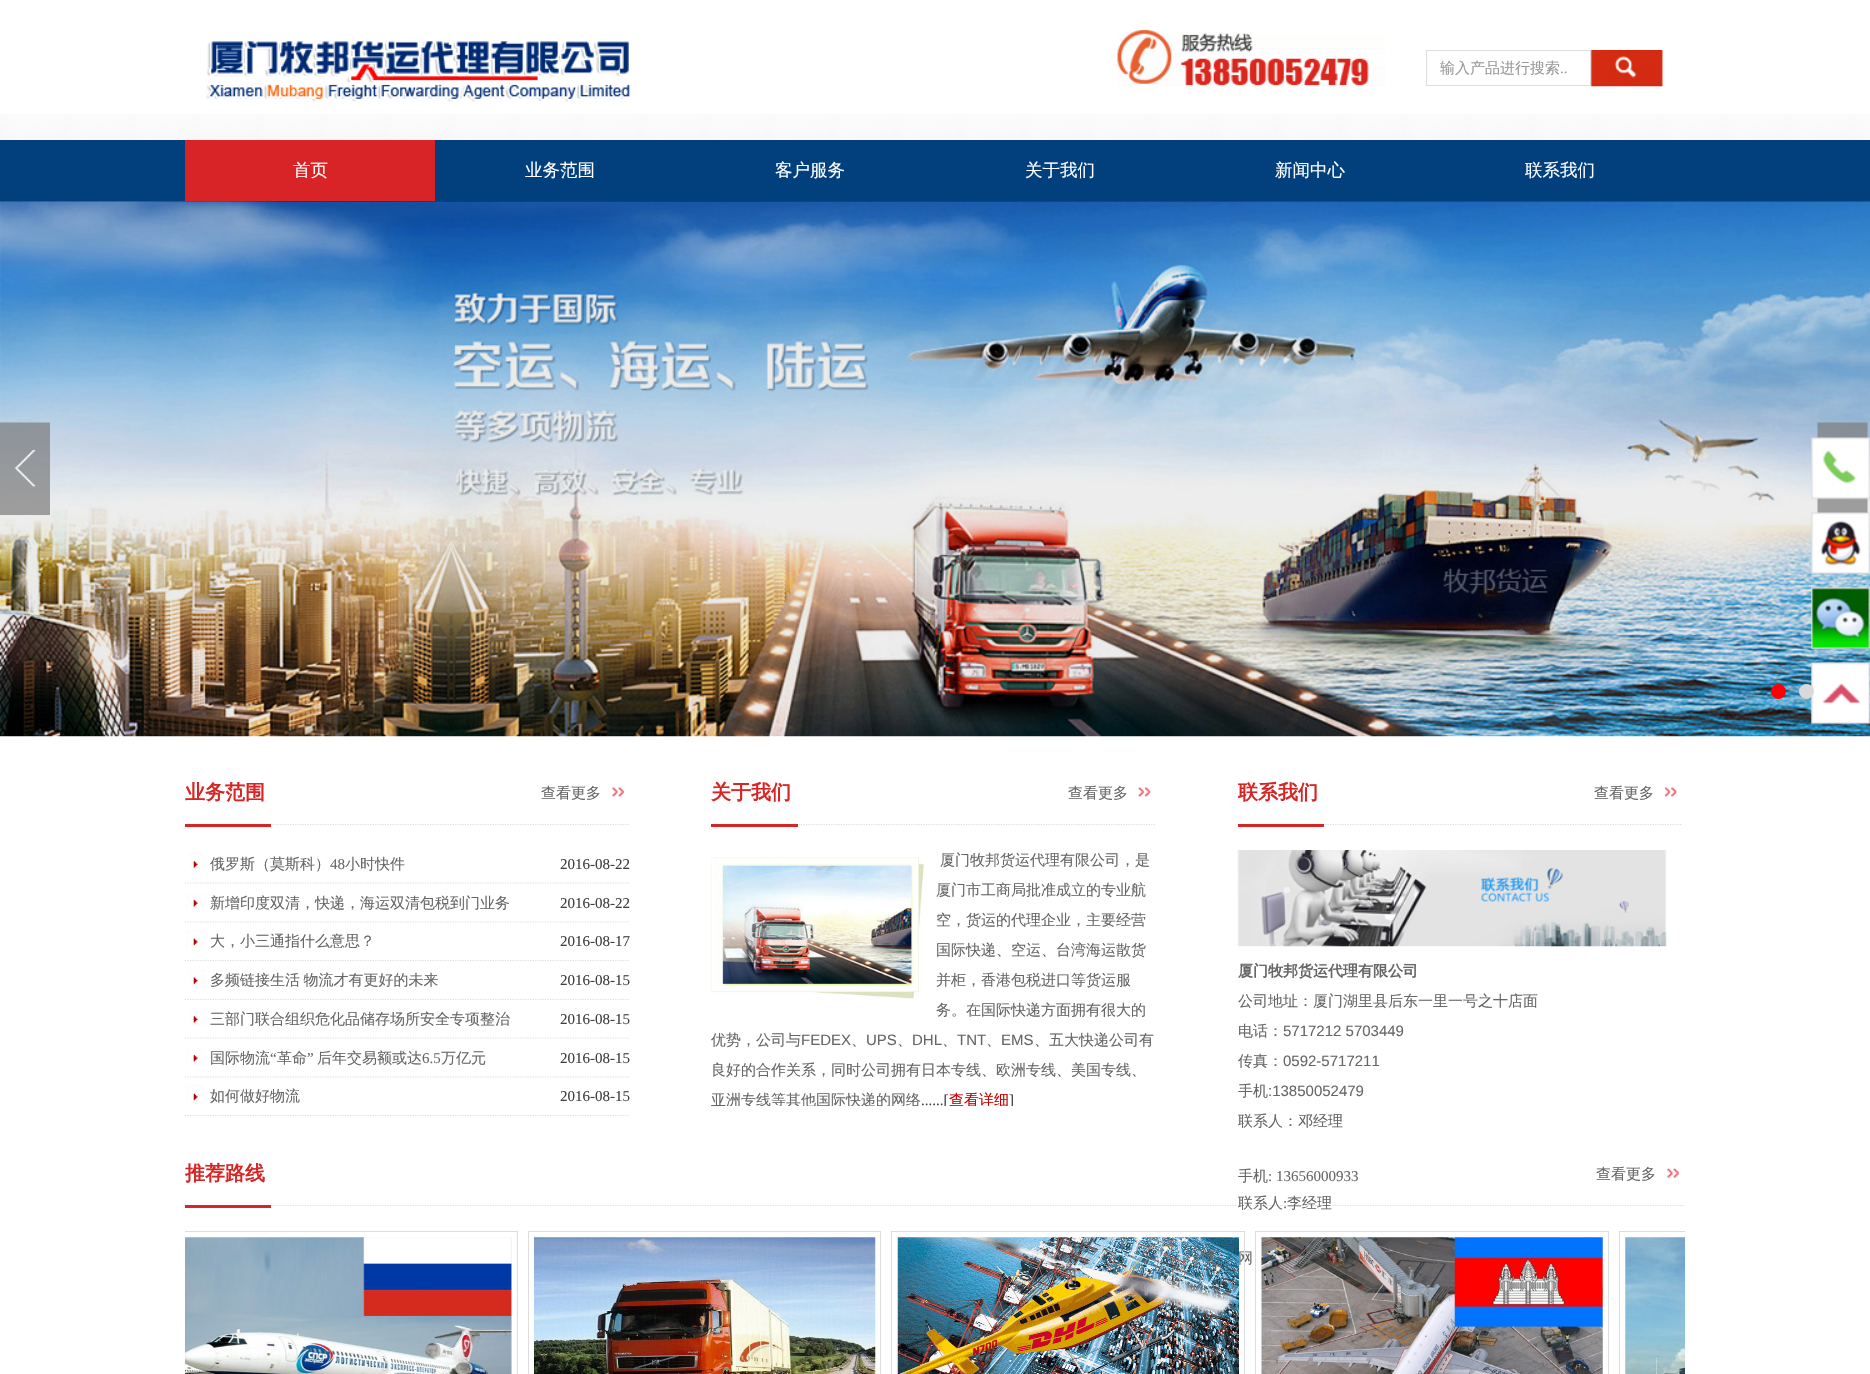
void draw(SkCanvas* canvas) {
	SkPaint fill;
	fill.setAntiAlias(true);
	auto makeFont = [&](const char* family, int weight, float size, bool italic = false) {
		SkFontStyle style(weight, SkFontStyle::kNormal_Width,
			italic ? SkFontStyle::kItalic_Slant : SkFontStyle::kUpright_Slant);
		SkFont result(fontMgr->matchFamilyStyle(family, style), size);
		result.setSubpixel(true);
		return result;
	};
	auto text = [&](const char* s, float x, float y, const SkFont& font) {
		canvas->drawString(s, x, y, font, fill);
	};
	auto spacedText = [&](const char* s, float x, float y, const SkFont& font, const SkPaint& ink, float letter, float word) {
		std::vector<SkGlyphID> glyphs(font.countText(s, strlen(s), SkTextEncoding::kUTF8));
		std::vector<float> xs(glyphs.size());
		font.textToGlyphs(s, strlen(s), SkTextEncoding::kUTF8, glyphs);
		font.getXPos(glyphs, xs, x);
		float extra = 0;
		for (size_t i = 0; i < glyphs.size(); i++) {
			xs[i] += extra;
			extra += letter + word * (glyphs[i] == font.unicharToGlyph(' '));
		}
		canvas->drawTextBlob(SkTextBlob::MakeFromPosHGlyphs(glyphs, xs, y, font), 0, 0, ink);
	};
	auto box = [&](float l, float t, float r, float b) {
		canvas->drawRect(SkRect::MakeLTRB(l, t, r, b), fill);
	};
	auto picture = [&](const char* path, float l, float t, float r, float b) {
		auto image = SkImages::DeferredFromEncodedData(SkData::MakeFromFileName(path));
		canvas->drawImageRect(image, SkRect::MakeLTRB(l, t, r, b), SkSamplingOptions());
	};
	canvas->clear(0xFFFFFFFF);
	picture("image0.png", 0, 114, 1870, 140);
	picture("image1.png", 206, 41, 631, 102);
	picture("image2.png", 1117, 29, 1385, 86);
	fill.setStyle(SkPaint::kStroke_Style);
	fill.setStrokeWidth(1);
	fill.setColor(0xFFDDDDDD);
	canvas->drawRect(SkRect::MakeLTRB(1426.5f, 50.5f, 1590.5f, 85.5f), fill);
	picture("image3.png", 1591, 50, 1663, 87);
	fill.setStyle(SkPaint::kFill_Style);
	fill.setColor(0xFF02407D);
	box(0, 140, 1870, 201);
	fill.setColor(0xFFD82427);
	box(185, 140, 435, 201);
	fill.setColor(0xFF000000);
	box(0, 201, 1870, 736);
	picture("image4.png", 0, 201, 1870, 737);
	picture("image5.png", 0, 422, 50, 515);
	picture("image6.png", 1817, 422, 1868, 513);
	fill.setColor(0xFFFF0000);
	canvas->drawCircle(1778.5f, 691.5f, 7.5f, fill);
	picture("image10.png", 1811, 662, 1870, 725);
	fill.setColor(0xFFD9D9D9);
	canvas->drawCircle(1806.5f, 691.5f, 7.5f, fill);
	picture("image7.png", 1811, 437, 1870, 500);
	picture("image8.png", 1811, 512, 1870, 575);
	picture("image9.png", 1811, 587, 1870, 650);
	fill.setStyle(SkPaint::kStroke_Style);
	fill.setStrokeWidth(1.2f);
	fill.setColor(0xFFDDDDDD);
	fill.setPathEffect(SkDashPathEffect::Make({{1.25f, 1.25f}}, 0));
	canvas->drawPath(SkPathBuilder().moveTo(185, 824.5f).lineTo(630, 824.5f).detach(), fill);
	fill.setPathEffect(nullptr);
	fill.setStyle(SkPaint::kFill_Style);
	fill.setColor(0xFFD72525);
	box(185, 824, 271, 827);
	picture("image11.png", 612, 787, 624, 797);
	picture("image12.png", 189, 853, 206, 871);
	fill.setStyle(SkPaint::kStroke_Style);
	fill.setColor(0xFFDDDDDD);
	fill.setPathEffect(SkDashPathEffect::Make({{1.25f, 1.25f}}, 0));
	canvas->drawPath(SkPathBuilder().moveTo(185, 883).lineTo(630, 883).detach(), fill);
	fill.setPathEffect(nullptr);
	picture("image13.png", 186, 893, 204, 910);
	fill.setPathEffect(SkDashPathEffect::Make({{1.25f, 1.25f}}, 0));
	canvas->drawPath(SkPathBuilder().moveTo(185, 922).lineTo(630, 922).detach(), fill);
	fill.setPathEffect(nullptr);
	picture("image14.png", 186, 930, 205, 949);
	fill.setPathEffect(SkDashPathEffect::Make({{1.25f, 1.25f}}, 0));
	canvas->drawPath(SkPathBuilder().moveTo(185, 960.5f).lineTo(630, 960.5f).detach(), fill);
	fill.setPathEffect(nullptr);
	picture("image15.png", 188, 969, 206, 988);
	fill.setPathEffect(SkDashPathEffect::Make({{1.25f, 1.25f}}, 0));
	canvas->drawPath(SkPathBuilder().moveTo(185, 999.5f).lineTo(630, 999.5f).detach(), fill);
	fill.setPathEffect(nullptr);
	picture("image12.png", 189, 1008, 206, 1026);
	fill.setPathEffect(SkDashPathEffect::Make({{1.25f, 1.25f}}, 0));
	canvas->drawPath(SkPathBuilder().moveTo(185, 1038).lineTo(630, 1038).detach(), fill);
	fill.setPathEffect(nullptr);
	picture("image13.png", 186, 1048, 204, 1065);
	fill.setPathEffect(SkDashPathEffect::Make({{1.25f, 1.25f}}, 0));
	canvas->drawPath(SkPathBuilder().moveTo(185, 1077).lineTo(630, 1077).detach(), fill);
	fill.setPathEffect(nullptr);
	picture("image14.png", 186, 1085, 205, 1104);
	fill.setPathEffect(SkDashPathEffect::Make({{1.25f, 1.25f}}, 0));
	canvas->drawPath(SkPathBuilder().moveTo(185, 1115.5f).lineTo(630, 1115.5f).detach(), fill);
	fill.setPathEffect(nullptr);
	fill.setPathEffect(SkDashPathEffect::Make({{1.25f, 1.25f}}, 0));
	canvas->drawPath(SkPathBuilder().moveTo(711, 824.5f).lineTo(1156, 824.5f).detach(), fill);
	fill.setPathEffect(nullptr);
	fill.setStyle(SkPaint::kFill_Style);
	fill.setColor(0xFFD72525);
	box(711, 824, 798, 827);
	picture("image16.png", 1138, 787, 1151, 797);
	picture("image17.png", 711, 857, 924, 999);
	fill.setStyle(SkPaint::kStroke_Style);
	fill.setColor(0xFFDDDDDD);
	fill.setPathEffect(SkDashPathEffect::Make({{1.25f, 1.25f}}, 0));
	canvas->drawPath(SkPathBuilder().moveTo(1237.5f, 824.5f).lineTo(1682.5f, 824.5f).detach(), fill);
	fill.setPathEffect(nullptr);
	fill.setStyle(SkPaint::kFill_Style);
	fill.setColor(0xFFD72525);
	box(1238, 824, 1324, 827);
	picture("image18.png", 1664, 787, 1677, 797);
	picture("image19.png", 1237, 850, 1667, 947);
	fill.setStyle(SkPaint::kStroke_Style);
	fill.setColor(0xFFDDDDDD);
	fill.setPathEffect(SkDashPathEffect::Make({{1.25f, 1.25f}}, 0));
	canvas->drawPath(SkPathBuilder().moveTo(185, 1205.5f).lineTo(1685, 1205.5f).detach(), fill);
	fill.setPathEffect(nullptr);
	fill.setStyle(SkPaint::kFill_Style);
	fill.setColor(0xFFD72525);
	box(185, 1205, 271, 1208);
	picture("image20.png", 1667, 1168, 1679, 1178);
	canvas->save();
	canvas->clipRect(SkRect::MakeLTRB(185, 1231, 1685, 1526));
	fill.setStyle(SkPaint::kStroke_Style);
	fill.setStrokeWidth(1);
	fill.setColor(0xFFDDDDDD);
	canvas->drawRect(SkRect::MakeLTRB(164.5f, 1231.5f, 517.5f, 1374.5f), fill);
	canvas->restore();
	picture("image21.png", 185, 1237, 512, 1374);
	canvas->drawRect(SkRect::MakeLTRB(528.5f, 1231.5f, 880.5f, 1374.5f), fill);
	picture("image22.png", 534, 1237, 876, 1374);
	canvas->drawRect(SkRect::MakeLTRB(1255.5f, 1231.5f, 1608.5f, 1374.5f), fill);
	picture("image24.png", 1261, 1237, 1603, 1374);
	canvas->save();
	canvas->clipRect(SkRect::MakeLTRB(185, 1231, 1685, 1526));
	canvas->drawRect(SkRect::MakeLTRB(1619.5f, 1231.5f, 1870.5f, 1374.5f), fill);
	canvas->restore();
	picture("image25.png", 1625, 1237, 1685, 1374);
	auto font1 = makeFont("WenQuanYi Zen Hei", 500, 15);
	fill.setStyle(SkPaint::kFill_Style);
	fill.setColor(0xFF999999);
	text("输入产品进行搜索", 1440, 73, font1);
	auto font2 = makeFont("Liberation Serif", 400, 15);
	text("..", 1560, 73, font2);
	auto font3 = makeFont("WenQuanYi Zen Hei", 500, 17.5f);
	fill.setColor(0xFFFFFFFF);
	text("首页", 293, 176, font3);
	text("业务范围", 525, 176, font3);
	text("客户服务", 775, 176, font3);
	text("关于我们", 1025, 176, font3);
	text("新闻中心", 1275, 176, font3);
	text("联系我们", 1525, 176, font3);
	auto font4 = makeFont("WenQuanYi Zen Hei", 700, 20);
	fill.setColor(0xFFD72525);
	text("业务范围", 185, 799, font4);
	fill.setColor(0xFF666666);
	text("查看更多", 541, 798, font1);
	text("俄罗斯（莫斯科）", 210, 869, font1);
	text("48", 330, 869, font2);
	text("小时快件", 345, 869, font1);
	fill.setColor(0xFF403F3E);
	text("2016-08-22", 560, 869, font2);
	fill.setColor(0xFF666666);
	text("新增印度双清，快递，海运双清包税到门业务", 210, 908, font1);
	fill.setColor(0xFF403F3E);
	text("2016-08-22", 560, 908, font2);
	fill.setColor(0xFF666666);
	text("大，小三通指什么意思？", 210, 946, font1);
	fill.setColor(0xFF403F3E);
	text("2016-08-17", 560, 946, font2);
	fill.setColor(0xFF666666);
	spacedText("多频链接生活 物流才有更好的未来", 210, 985, font1, fill, 0, -1);
	fill.setColor(0xFF403F3E);
	text("2016-08-15", 560, 985, font2);
	fill.setColor(0xFF666666);
	text("三部门联合组织危化品储存场所安全专项整治", 210, 1024, font1);
	fill.setColor(0xFF403F3E);
	text("2016-08-15", 560, 1024, font2);
	fill.setColor(0xFF666666);
	text("国际物流", 210, 1063, font1);
	text("“", 270, 1063, font2);
	text("革命", 277, 1063, font1);
	text("”", 307, 1063, font2);
	text("后年交易额或达", 317, 1063, font1);
	text("6.5", 422, 1063, font2);
	text("万亿元", 441, 1063, font1);
	fill.setColor(0xFF403F3E);
	text("2016-08-15", 560, 1063, font2);
	fill.setColor(0xFF666666);
	text("如何做好物流", 210, 1101, font1);
	fill.setColor(0xFF403F3E);
	text("2016-08-15", 560, 1101, font2);
	fill.setColor(0xFFD72525);
	text("关于我们", 711, 799, font4);
	fill.setColor(0xFF666666);
	text("查看更多", 1068, 798, font1);
	text("厦门牧邦货运代理有限公司，是", 940, 865, font1);
	text("厦门市工商局批准成立的专业航", 936, 895, font1);
	text("空，货运的代理企业，主要经营", 936, 925, font1);
	text("国际快递、空运、台湾海运散货", 936, 955, font1);
	text("并柜，香港包税进口等货运服", 936, 985, font1);
	text("务。在国际快递方面拥有很大的", 936, 1015, font1);
	text("优势，公司与", 711, 1045, font1);
	auto font5 = makeFont("Liberation Sans", 400, 15);
	text("FEDEX", 801, 1045, font5);
	text("、", 851, 1045, font1);
	text("UPS", 866, 1045, font5);
	text("、", 897, 1045, font1);
	text("DHL", 912, 1045, font5);
	text("、", 942, 1045, font1);
	text("TNT", 957, 1045, font5);
	text("、", 986, 1045, font1);
	text("EMS", 1001, 1045, font5);
	text("、五大快递公司有", 1034, 1045, font1);
	text("良好的合作关系，同时公司拥有日本专线、欧洲专线、美国专线、", 711, 1075, font1);
	canvas->save();
	canvas->clipRect(SkRect::MakeLTRB(711, 826, 1156, 1106));
	text("亚洲专线等其他国际快递的网络", 711, 1105, font1);
	fill.setColor(0xFF403F3E);
	text("......[", 921, 1105, font2);
	fill.setColor(0xFFCC0000);
	text("查看详细", 949, 1105, font1);
	fill.setColor(0xFF403F3E);
	text("]", 1009, 1105, font2);
	canvas->restore();
	fill.setColor(0xFFD72525);
	text("联系我们", 1238, 799, font4);
	fill.setColor(0xFF666666);
	text("查看更多", 1594, 798, font1);
	auto font6 = makeFont("WenQuanYi Zen Hei", 700, 15);
	text("厦门牧邦货运代理有限公司", 1238, 976, font6);
	text("公司地址：厦门湖里县后东一里一号之十店面", 1238, 1006, font1);
	text("电话：", 1238, 1036, font1);
	text("5717212 5703449", 1283, 1036, font5);
	text("传真：", 1238, 1066, font1);
	text("0592-5717211", 1283, 1066, font5);
	text("手机", 1238, 1096, font1);
	text(":13850052479", 1268, 1096, font5);
	text("联系人：邓经理", 1238, 1126, font1);
	text("手机", 1238, 1181, font1);
	text(": 13656000933", 1268, 1181, font2);
	text("联系人", 1238, 1208, font1);
	text(":", 1283, 1208, font2);
	text("李经理", 1287, 1208, font1);
	text("网", 1238, 1263, font1);
	fill.setColor(0xFFD72525);
	text("推荐路线", 185, 1180, font4);
	fill.setColor(0xFF666666);
	text("查看更多", 1596, 1179, font1);
	fill.setStyle(SkPaint::kStroke_Style);
	fill.setColor(0xFFDDDDDD);
	canvas->drawRect(SkRect::MakeLTRB(891.5f, 1231.5f, 1244.5f, 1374.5f), fill);
	picture("image23.png", 897, 1237, 1239, 1374);
}
